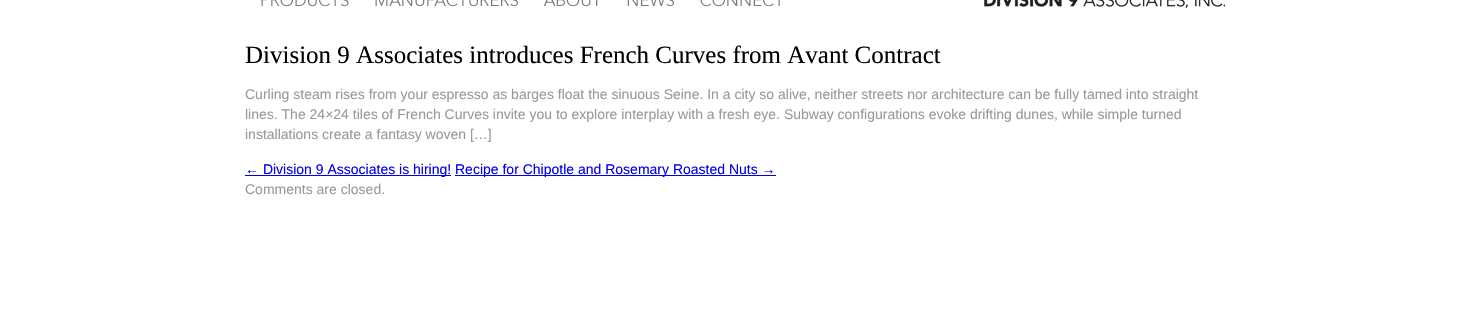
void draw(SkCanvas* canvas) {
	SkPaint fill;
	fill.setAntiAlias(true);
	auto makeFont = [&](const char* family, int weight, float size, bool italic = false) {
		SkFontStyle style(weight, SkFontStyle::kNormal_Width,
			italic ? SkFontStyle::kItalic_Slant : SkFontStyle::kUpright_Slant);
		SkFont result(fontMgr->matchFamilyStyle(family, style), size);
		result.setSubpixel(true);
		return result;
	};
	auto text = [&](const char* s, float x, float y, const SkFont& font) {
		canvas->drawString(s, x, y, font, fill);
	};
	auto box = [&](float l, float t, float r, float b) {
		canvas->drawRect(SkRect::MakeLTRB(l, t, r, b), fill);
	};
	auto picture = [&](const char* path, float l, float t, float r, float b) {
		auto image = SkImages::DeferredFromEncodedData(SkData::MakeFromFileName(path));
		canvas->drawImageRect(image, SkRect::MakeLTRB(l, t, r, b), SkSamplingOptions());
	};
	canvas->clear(0xFFFFFFFF);
	picture("image0.png", 261, 0, 349, 7);
	picture("image1.png", 375, 0, 518, 7);
	picture("image2.png", 543, 0, 598, 7);
	picture("image3.png", 627, 0, 674, 7);
	picture("image4.png", 700, 0, 780, 7);
	picture("image5.png", 984, 0, 1225, 8);
	fill.setColor(0xFF0000EE);
	box(245, 175, 451, 176);
	box(455, 175, 776, 176);
	auto font1 = makeFont("Liberation Serif", 400, 25);
	fill.setColor(0xFF000000);
	text("Division 9 Associates introduces French Curves from Avant Contract", 245, 63, font1);
	auto font2 = makeFont("Liberation Sans", 400, 14);
	fill.setColor(0xFF999999);
	text("Curling steam rises from your espresso as barges float the sinuous Seine. In a city so alive, neither streets nor architecture can be fully tamed into straight", 245, 99, font2);
	text("lines. The 24×24 tiles of French Curves invite you to explore interplay with a fresh eye. Subway configurations evoke drifting dunes, while simple turned", 245, 119, font2);
	text("installations create a fantasy woven […]", 245, 139, font2);
	fill.setColor(0xFF0000EE);
	text("← Division 9 Associates is hiring!", 245, 174, font2);
	text("Recipe for Chipotle and Rosemary Roasted Nuts →", 455, 174, font2);
	fill.setColor(0xFF999999);
	text("Comments are closed.", 245, 194, font2);
}
